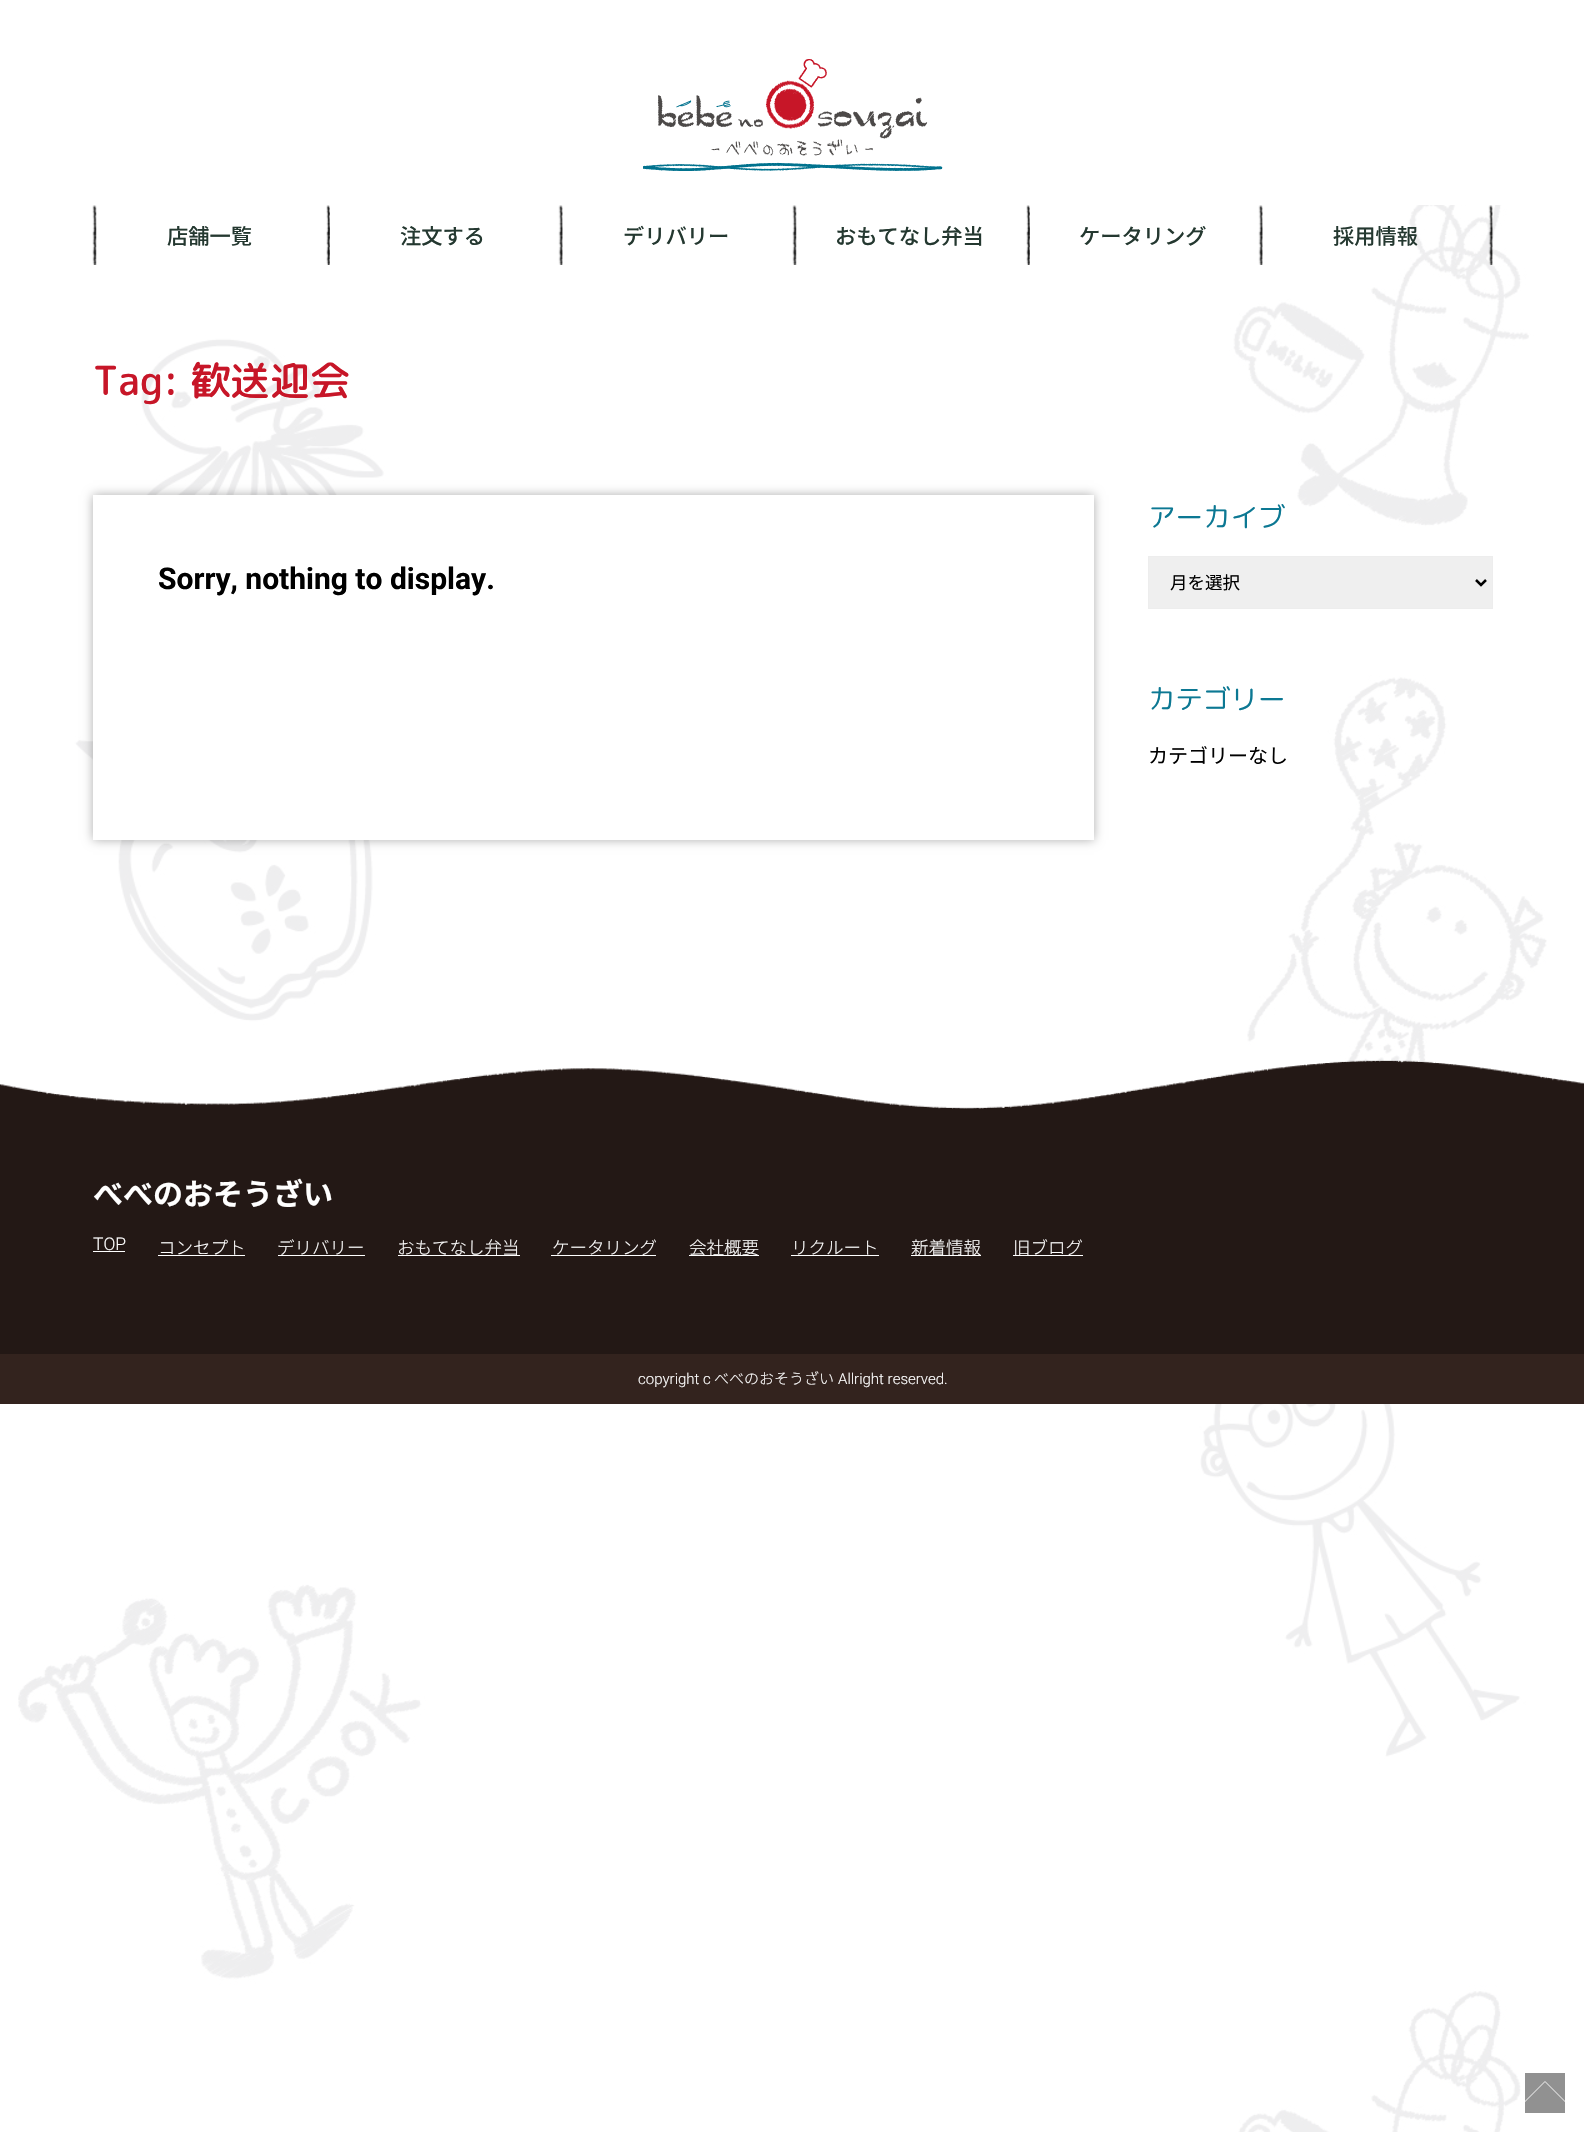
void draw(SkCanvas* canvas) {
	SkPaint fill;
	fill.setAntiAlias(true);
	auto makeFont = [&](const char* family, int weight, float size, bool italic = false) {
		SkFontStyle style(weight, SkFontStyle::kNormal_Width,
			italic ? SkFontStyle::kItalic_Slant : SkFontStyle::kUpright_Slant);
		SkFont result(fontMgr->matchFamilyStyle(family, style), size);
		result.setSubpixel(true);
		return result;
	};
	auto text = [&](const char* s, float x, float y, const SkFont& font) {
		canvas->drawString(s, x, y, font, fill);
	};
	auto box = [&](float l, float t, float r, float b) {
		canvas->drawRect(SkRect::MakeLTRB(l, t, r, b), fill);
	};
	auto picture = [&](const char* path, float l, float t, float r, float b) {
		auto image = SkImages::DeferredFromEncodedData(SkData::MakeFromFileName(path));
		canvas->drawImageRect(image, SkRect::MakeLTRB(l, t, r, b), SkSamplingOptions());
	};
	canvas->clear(0xFFFFFFFF);
	picture("image0.png", 18, 205, 1547, 2132);
	picture("image1.png", 643, 59, 943, 171);
	picture("image2.png", 1488, 205, 1493, 265);
	picture("image3.png", 92, 205, 97, 265);
	picture("image4.png", 326, 205, 330, 265);
	picture("image5.png", 558, 205, 563, 265);
	picture("image3.png", 792, 205, 797, 265);
	picture("image4.png", 1026, 205, 1030, 265);
	picture("image5.png", 1258, 205, 1263, 265);
	fill.setColor(0x52000000);
	fill.setMaskFilter(SkMaskFilter::MakeBlur(kNormal_SkBlurStyle, 5));
	canvas->drawRect(SkRect::MakeLTRB(93, 495, 1094, 840), fill);
	fill.setMaskFilter(nullptr);
	fill.setColor(0xFFFFFFFF);
	box(93, 495, 1094, 840);
	fill.setColor(0xFFEFEFEF);
	canvas->drawRect(SkRect::MakeLTRB(1148.5f, 556.5f, 1492.5f, 608.5f), fill);
	fill.setStyle(SkPaint::kStroke_Style);
	fill.setStrokeWidth(1);
	fill.setColor(0xFFEDEDED);
	canvas->drawRect(SkRect::MakeLTRB(1148.5f, 556.5f, 1492.5f, 608.5f), fill);
	fill.setStrokeWidth(2.5f);
	fill.setColor(0xFF000000);
	canvas->drawPath(SkPathBuilder().moveTo(1476, 580).lineTo(1481, 585).lineTo(1486, 580).detach(), fill);
	picture("image6.png", 0, 1060, 1584, 1110);
	fill.setStyle(SkPaint::kFill_Style);
	fill.setColor(0xFF231815);
	box(0, 1110, 1584, 1354);
	fill.setColor(0xFFFFFFFF);
	box(93, 1251, 125, 1252);
	box(158, 1255, 245, 1256);
	box(278, 1255, 365, 1256);
	box(398, 1255, 520, 1256);
	box(551, 1255, 656, 1256);
	box(689, 1255, 759, 1256);
	box(791, 1255, 879, 1256);
	box(911, 1255, 981, 1256);
	box(1013, 1255, 1083, 1256);
	fill.setColor(0xFF33231E);
	box(0, 1354, 1584, 1404);
	fill.setColor(0xFF919191);
	box(1525, 2073, 1565, 2113);
	canvas->save();
	canvas->clipRect(SkRect::MakeLTRB(1525, 2073, 1565, 2113));
	fill.setStyle(SkPaint::kStroke_Style);
	fill.setStrokeWidth(0.9f);
	fill.setColor(0xFFFFFFFF);
	canvas->drawPath(SkPathBuilder().moveTo(1486.5f, 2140).lineTo(1545, 2081.5f).lineTo(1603.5f, 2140).lineTo(1545, 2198.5f).close().detach(), fill);
	canvas->restore();
	auto font1 = makeFont("Noto Sans JP", 500, 21.25f);
	fill.setStyle(SkPaint::kFill_Style);
	fill.setColor(0xFF243830);
	text("店舗一覧", 167, 244, font1);
	text("注文する", 400, 244, font1);
	text("デリバリー", 623, 244, font1);
	text("おもてなし弁当", 835, 244, font1);
	text("ケータリング", 1079, 244, font1);
	text("採用情報", 1333, 244, font1);
	auto font2 = makeFont("Rounded Mplus 1c", 500, 40);
	fill.setColor(0xFFC71628);
	text("Tag: 歓送迎会", 93, 395, font2);
	auto font3 = makeFont("Roboto", 700, 30);
	fill.setColor(0xFF000000);
	text("Sorry, nothing to display.", 158, 589, font3);
	auto font4 = makeFont("Rounded Mplus 1c", 400, 27.5f);
	fill.setColor(0xFF0C7893);
	text("アーカイブ", 1148, 527, font4);
	auto font5 = makeFont("Noto Sans JP", 400, 17.5f);
	fill.setColor(0xFF000000);
	text("月を選択", 1170, 589, font5);
	fill.setColor(0xFF0C7893);
	text("カテゴリー", 1148, 709, font4);
	auto font6 = makeFont("Noto Sans JP", 400, 20);
	fill.setColor(0xFF000000);
	text("カテゴリーなし", 1148, 763, font6);
	auto font7 = makeFont("Noto Sans JP", 700, 30);
	fill.setColor(0xFFFFFFFF);
	text("べべのおそうざい", 93, 1205, font7);
	auto font8 = makeFont("Roboto", 300, 17.5f);
	text("TOP", 93, 1250, font8);
	auto font9 = makeFont("Noto Sans JP", 300, 17.5f);
	text("コンセプト", 158, 1254, font9);
	text("デリバリー", 277, 1254, font9);
	text("おもてなし弁当", 397, 1254, font9);
	text("ケータリング", 552, 1254, font9);
	text("会社概要", 689, 1254, font9);
	text("リクルート", 791, 1254, font9);
	text("新着情報", 911, 1254, font9);
	text("旧ブログ", 1013, 1254, font9);
	auto font10 = makeFont("Roboto", 300, 15);
	text("copyright c", 638, 1384, font10);
	auto font11 = makeFont("Noto Sans JP", 300, 15);
	text("べべのおそうざい", 714, 1384, font11);
	text("Allright reserved.", 838, 1384, font10);
}
